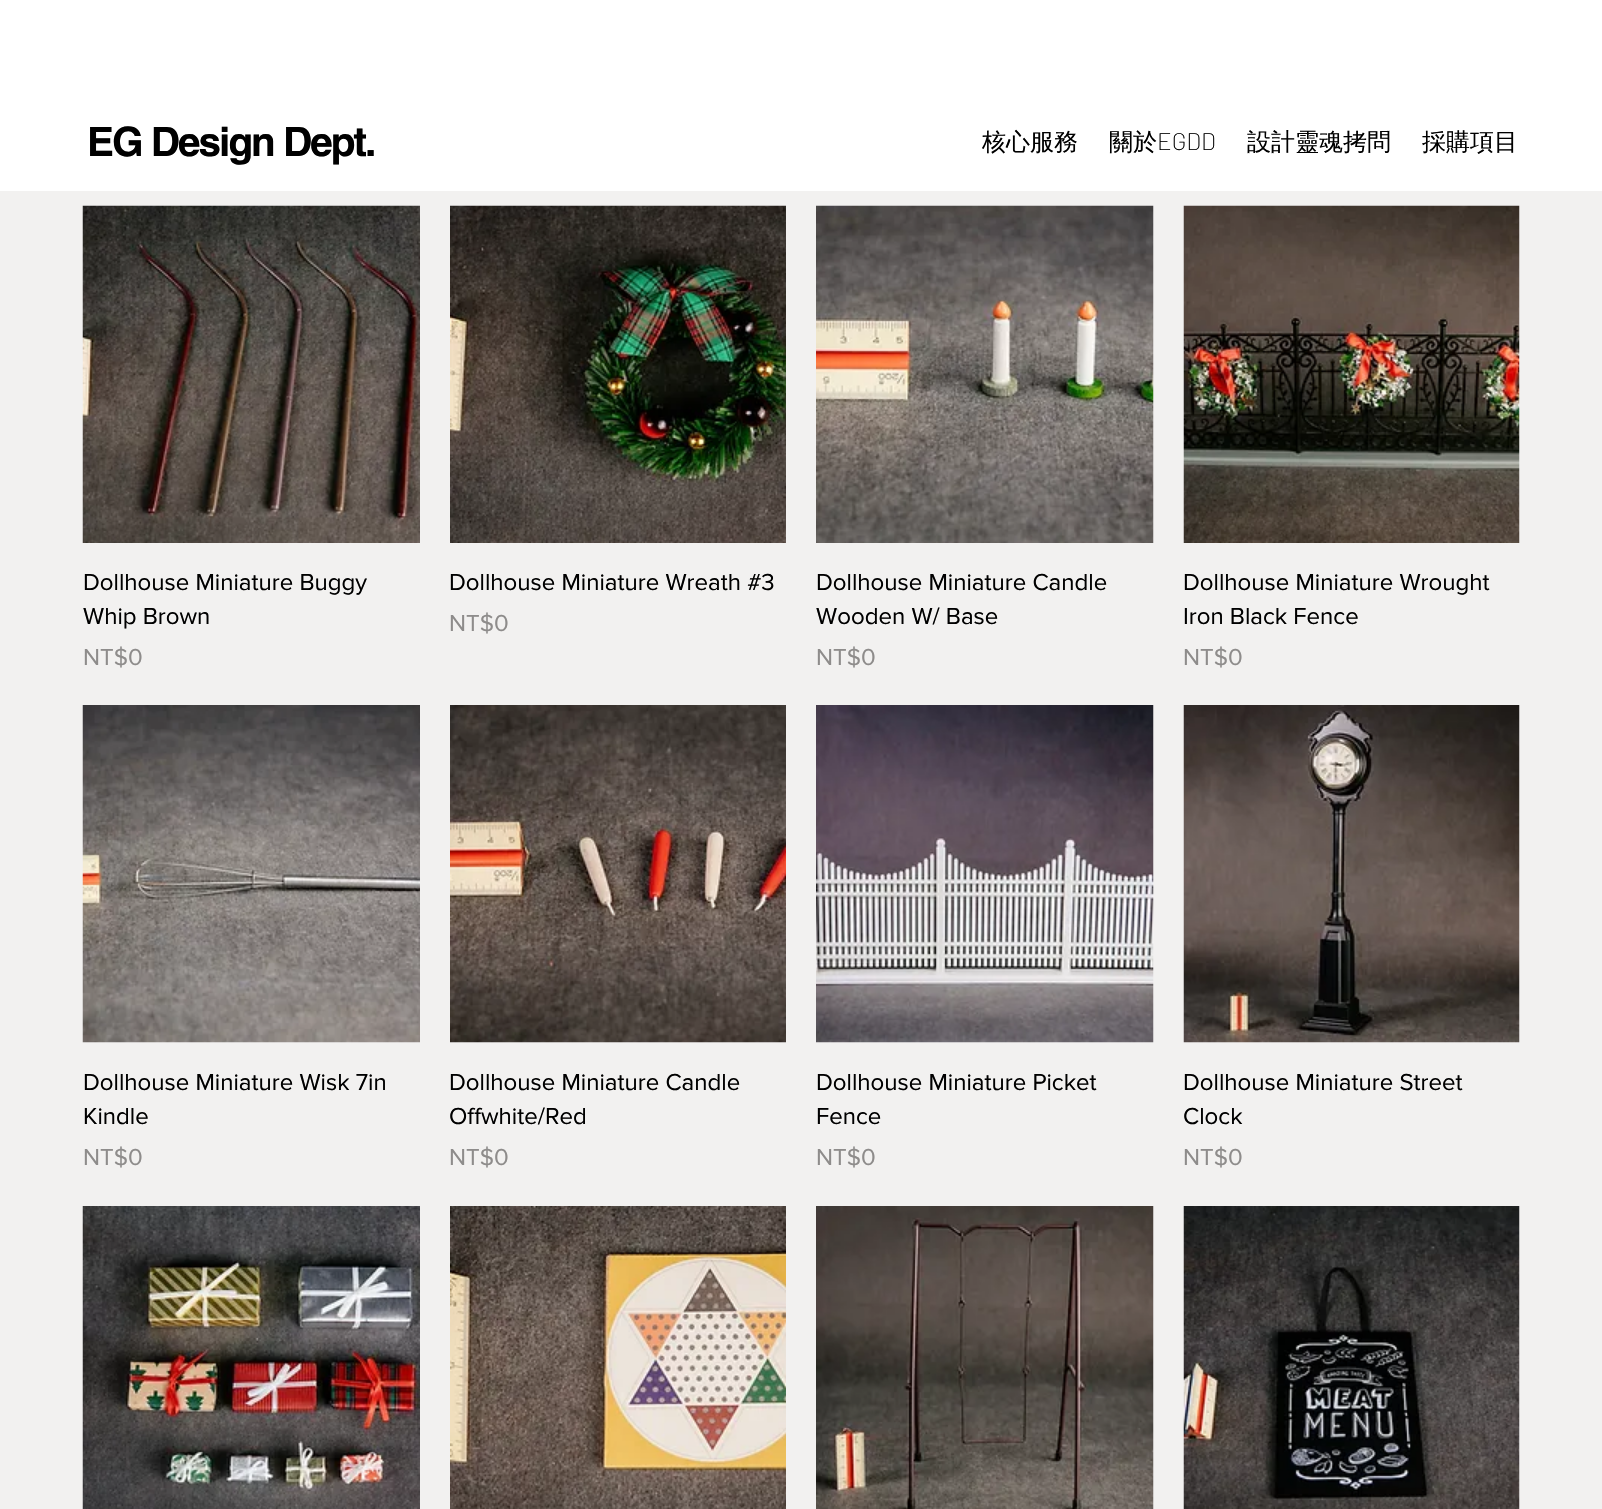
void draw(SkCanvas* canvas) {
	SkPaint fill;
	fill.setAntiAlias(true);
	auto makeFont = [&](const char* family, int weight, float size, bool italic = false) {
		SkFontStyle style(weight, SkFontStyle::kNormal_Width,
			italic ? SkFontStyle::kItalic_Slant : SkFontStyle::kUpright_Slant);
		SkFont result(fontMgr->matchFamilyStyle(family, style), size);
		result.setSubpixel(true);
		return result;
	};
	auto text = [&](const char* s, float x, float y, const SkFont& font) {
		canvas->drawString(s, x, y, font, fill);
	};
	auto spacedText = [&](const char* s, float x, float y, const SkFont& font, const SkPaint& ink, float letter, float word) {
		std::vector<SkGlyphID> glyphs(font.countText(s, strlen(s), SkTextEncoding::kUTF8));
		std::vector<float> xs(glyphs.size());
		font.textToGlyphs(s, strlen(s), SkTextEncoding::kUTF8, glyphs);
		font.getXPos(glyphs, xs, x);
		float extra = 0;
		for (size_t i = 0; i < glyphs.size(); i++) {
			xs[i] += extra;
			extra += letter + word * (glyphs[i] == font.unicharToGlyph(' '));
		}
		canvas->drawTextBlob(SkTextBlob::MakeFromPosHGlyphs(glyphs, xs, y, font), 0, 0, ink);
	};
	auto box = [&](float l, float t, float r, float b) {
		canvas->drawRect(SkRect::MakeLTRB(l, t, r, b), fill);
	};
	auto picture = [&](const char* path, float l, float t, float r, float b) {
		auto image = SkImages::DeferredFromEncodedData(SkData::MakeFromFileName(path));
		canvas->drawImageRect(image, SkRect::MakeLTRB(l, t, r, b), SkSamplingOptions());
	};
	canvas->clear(0xFFF2F1F0);
	fill.setColor(0xFFFFFFFF);
	box(0, 0, 1602, 191);
	picture("image0.png", 82, 205, 420, 543);
	picture("image1.png", 450, 205, 786, 543);
	picture("image2.png", 816, 205, 1154, 543);
	picture("image3.png", 1183, 205, 1520, 543);
	picture("image4.png", 82, 705, 420, 1043);
	picture("image5.png", 450, 705, 786, 1043);
	picture("image6.png", 816, 705, 1154, 1043);
	picture("image7.png", 1183, 705, 1520, 1043);
	picture("image8.png", 82, 1206, 420, 1509);
	picture("image9.png", 450, 1206, 786, 1509);
	picture("image10.png", 816, 1206, 1154, 1509);
	picture("image11.png", 1183, 1206, 1520, 1509);
	auto font1 = makeFont("helvetica", 700, 40.5f);
	fill.setColor(0xFF000000);
	spacedText("EG Design Dept.", 87, 156, font1, fill, -2, 0);
	auto font2 = makeFont("WenQuanYi Zen Hei", 500, 24);
	text("核心服務", 982, 150, font2);
	text("關於", 1109, 150, font2);
	auto font3 = makeFont("Barlow", 200, 24);
	text("EGDD", 1157, 150, font3);
	text("設計靈魂拷問", 1247, 150, font2);
	text("採購項目", 1422, 150, font2);
	auto font4 = makeFont("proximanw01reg", 400, 24);
	text("Dollhouse Miniature Buggy", 83, 590, font4);
	text("Whip Brown", 83, 624, font4);
	fill.setColor(0xFF8E8C8B);
	text("NT$0", 83, 665, font4);
	fill.setColor(0xFF000000);
	text("Dollhouse Miniature Wreath #3", 449, 590, font4);
	fill.setColor(0xFF8E8C8B);
	text("NT$0", 449, 631, font4);
	fill.setColor(0xFF000000);
	text("Dollhouse Miniature Candle", 816, 590, font4);
	text("Wooden W/ Base", 816, 624, font4);
	fill.setColor(0xFF8E8C8B);
	text("NT$0", 816, 665, font4);
	fill.setColor(0xFF000000);
	text("Dollhouse Miniature Wrought", 1183, 590, font4);
	text("Iron Black Fence", 1183, 624, font4);
	fill.setColor(0xFF8E8C8B);
	text("NT$0", 1183, 665, font4);
	fill.setColor(0xFF000000);
	text("Dollhouse Miniature Wisk 7in", 83, 1090, font4);
	text("Kindle", 83, 1124, font4);
	fill.setColor(0xFF8E8C8B);
	text("NT$0", 83, 1165, font4);
	fill.setColor(0xFF000000);
	text("Dollhouse Miniature Candle", 449, 1090, font4);
	text("Offwhite/Red", 449, 1124, font4);
	fill.setColor(0xFF8E8C8B);
	text("NT$0", 449, 1165, font4);
	fill.setColor(0xFF000000);
	text("Dollhouse Miniature Picket", 816, 1090, font4);
	text("Fence", 816, 1124, font4);
	fill.setColor(0xFF8E8C8B);
	text("NT$0", 816, 1165, font4);
	fill.setColor(0xFF000000);
	text("Dollhouse Miniature Street", 1183, 1090, font4);
	text("Clock", 1183, 1124, font4);
	fill.setColor(0xFF8E8C8B);
	text("NT$0", 1183, 1165, font4);
}
